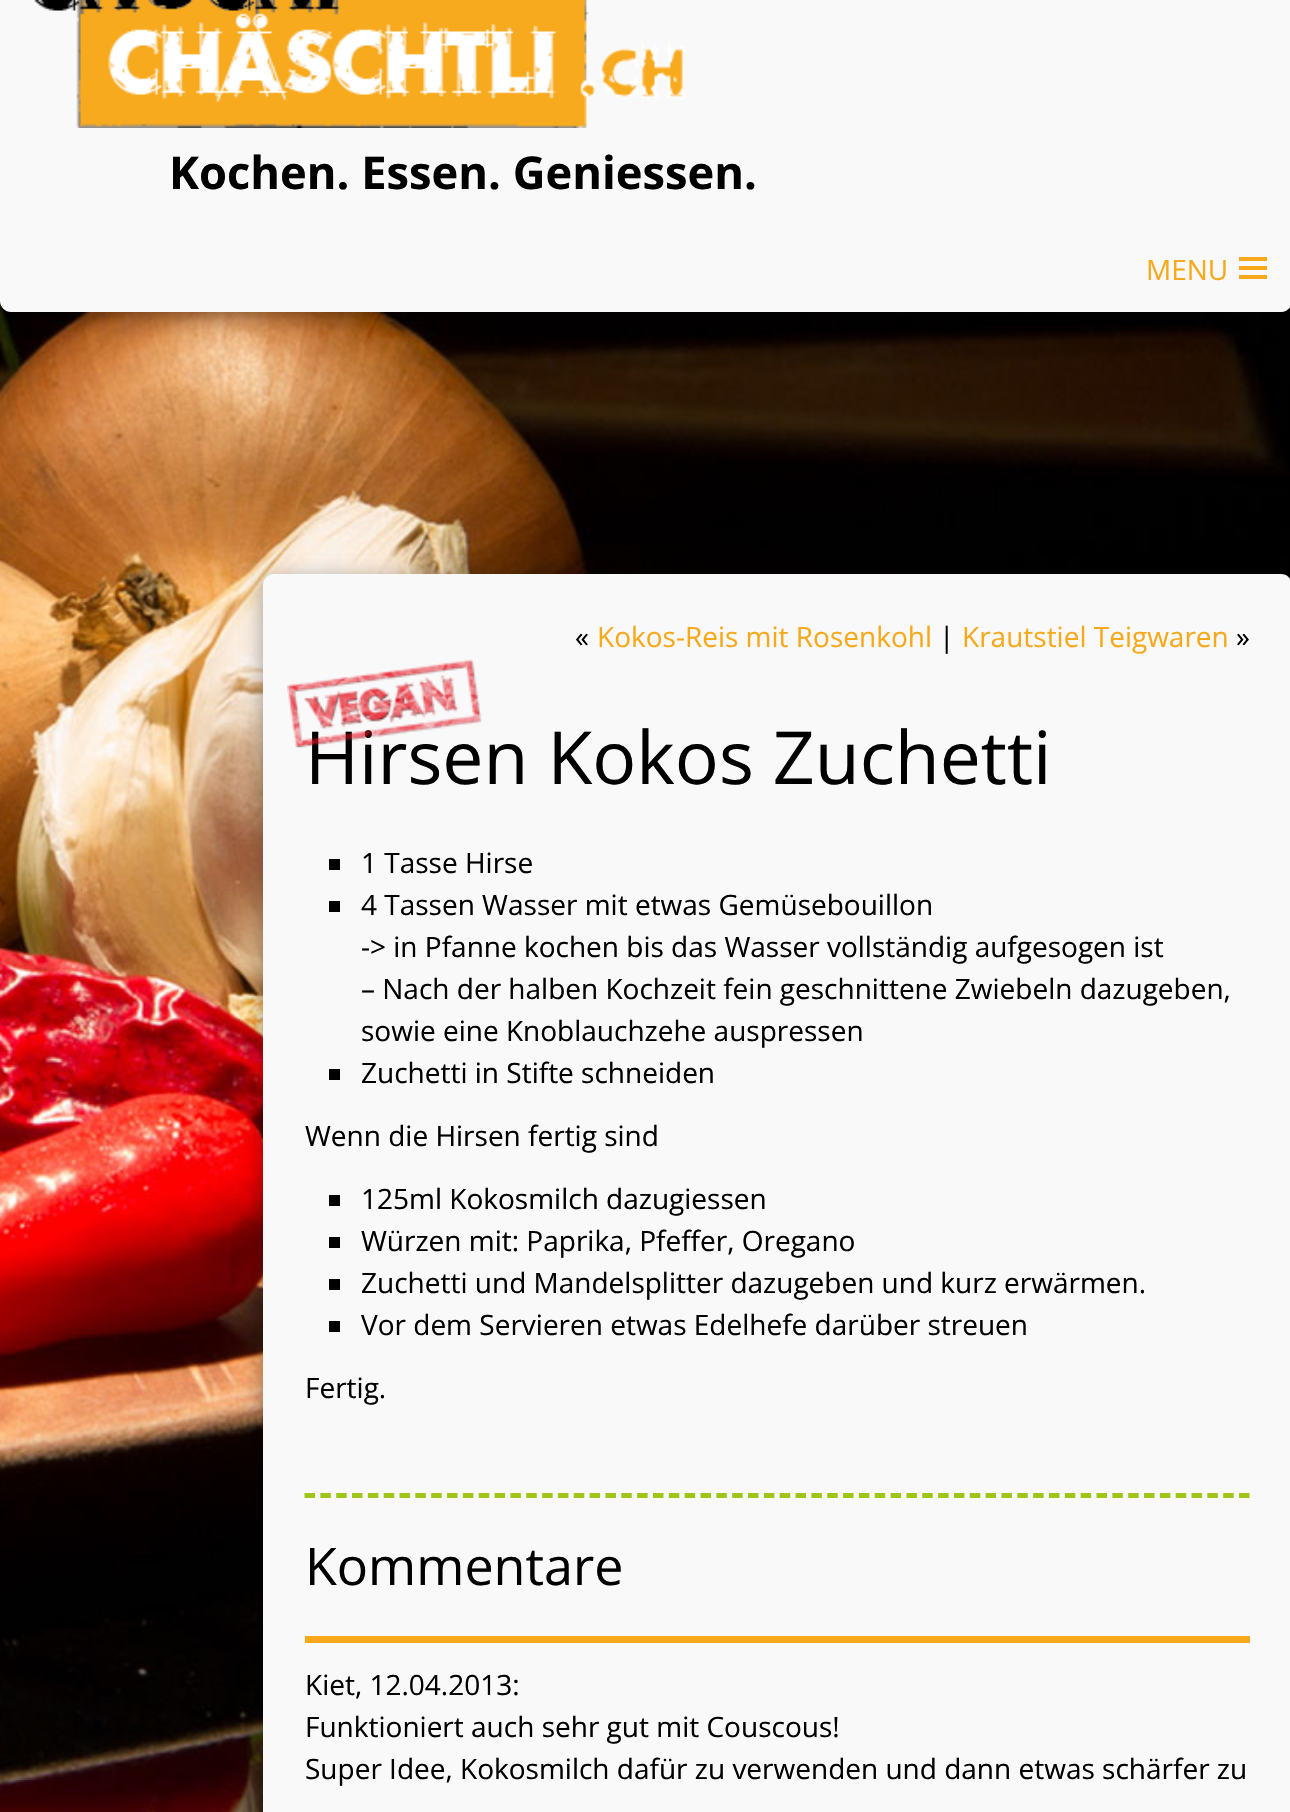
void draw(SkCanvas* canvas) {
	SkPaint fill;
	fill.setAntiAlias(true);
	auto makeFont = [&](const char* family, int weight, float size, bool italic = false) {
		SkFontStyle style(weight, SkFontStyle::kNormal_Width,
			italic ? SkFontStyle::kItalic_Slant : SkFontStyle::kUpright_Slant);
		SkFont result(fontMgr->matchFamilyStyle(family, style), size);
		result.setSubpixel(true);
		return result;
	};
	auto text = [&](const char* s, float x, float y, const SkFont& font) {
		canvas->drawString(s, x, y, font, fill);
	};
	auto box = [&](float l, float t, float r, float b) {
		canvas->drawRect(SkRect::MakeLTRB(l, t, r, b), fill);
	};
	auto roundBox = [&](float l, float t, float r, float b, float radius) {
		canvas->drawRoundRect(SkRect::MakeLTRB(l, t, r, b), radius, radius, fill);
	};
	auto picture = [&](const char* path, float l, float t, float r, float b) {
		auto image = SkImages::DeferredFromEncodedData(SkData::MakeFromFileName(path));
		canvas->drawImageRect(image, SkRect::MakeLTRB(l, t, r, b), SkSamplingOptions());
	};
	canvas->clear(0xFFFFFFFF);
	picture("image1.png", 0, 301, 1290, 1812);
	fill.setColor(0x29000000);
	fill.setMaskFilter(SkMaskFilter::MakeBlur(kNormal_SkBlurStyle, 10.5f));
	canvas->drawRoundRect(SkRect::MakeLTRB(0, -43, 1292, 317), 11, 11, fill);
	fill.setMaskFilter(nullptr);
	fill.setColor(0x3B000000);
	fill.setMaskFilter(SkMaskFilter::MakeBlur(kNormal_SkBlurStyle, 10.5f));
	canvas->drawRoundRect(SkRect::MakeLTRB(0, -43, 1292, 317), 11, 11, fill);
	fill.setMaskFilter(nullptr);
	fill.setColor(0xFFF9F9F9);
	canvas->drawPath(SkPathBuilder().moveTo(0, -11).lineTo(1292, -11).lineTo(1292, 301).cubicTo(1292, 307, 1287, 312, 1281, 312).lineTo(11, 312).cubicTo(5, 312, 0, 307, 0, 301).close().detach(), fill);
	picture("image0.png", 34, 0, 686, 128);
	fill.setColor(0xFFF8A91B);
	box(1239, 257, 1267, 261);
	box(1239, 266, 1267, 270);
	box(1239, 275, 1267, 279);
	fill.setColor(0x29000000);
	fill.setMaskFilter(SkMaskFilter::MakeBlur(kNormal_SkBlurStyle, 10.5f));
	canvas->drawRoundRect(SkRect::MakeLTRB(263, 579, 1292, 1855), 11, 11, fill);
	fill.setMaskFilter(nullptr);
	fill.setColor(0x3B000000);
	fill.setMaskFilter(SkMaskFilter::MakeBlur(kNormal_SkBlurStyle, 10.5f));
	canvas->drawRoundRect(SkRect::MakeLTRB(263, 579, 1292, 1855), 11, 11, fill);
	fill.setMaskFilter(nullptr);
	fill.setColor(0xFFF9F9F9);
	roundBox(263, 574, 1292, 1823, 11);
	fill.setColor(0xFF000000);
	box(329, 859, 340, 870);
	box(329, 901, 340, 912);
	box(329, 1069, 340, 1080);
	box(329, 1195, 340, 1206);
	box(329, 1237, 340, 1248);
	box(329, 1279, 340, 1290);
	box(329, 1321, 340, 1332);
	fill.setStyle(SkPaint::kStroke_Style);
	fill.setStrokeWidth(5.2f);
	fill.setColor(0xFF9FC519);
	fill.setPathEffect(SkDashPathEffect::Make({{10.5f, 5.34f}}, 0));
	canvas->drawPath(SkPathBuilder().moveTo(304.5f, 1495.5f).lineTo(1249.5f, 1495.5f).detach(), fill);
	fill.setPathEffect(nullptr);
	fill.setStyle(SkPaint::kFill_Style);
	fill.setColor(0xFFF8A91B);
	box(305, 1636, 1250, 1643);
	auto font1 = makeFont("Open Sans", 700, 45.25f);
	fill.setColor(0xFF000000);
	text("Kochen. Essen. Geniessen.", 169, 189, font1);
	auto font2 = makeFont("Open Sans", 400, 28);
	fill.setColor(0xFFF8A91B);
	text("MENU", 1146, 280, font2);
	fill.setColor(0xFF000000);
	text("«", 575, 647, font2);
	fill.setColor(0xFFF8A91B);
	text("Kokos-Reis mit Rosenkohl", 597, 647, font2);
	fill.setColor(0xFF000000);
	text("|", 939, 647, font2);
	fill.setColor(0xFFF8A91B);
	text("Krautstiel Teigwaren", 962, 647, font2);
	fill.setColor(0xFF000000);
	text("»", 1236, 647, font2);
	auto font3 = makeFont("Open Sans", 400, 73.25f);
	text("Hirsen Kokos Zuchetti", 305, 784, font3);
	picture("image2.png", 287, 659, 482, 748);
	text("1 Tasse Hirse", 361, 873, font2);
	text("4 Tassen Wasser mit etwas Gemüsebouillon", 361, 915, font2);
	text("-> in Pfanne kochen bis das Wasser vollständig aufgesogen ist", 361, 957, font2);
	text("– Nach der halben Kochzeit fein geschnittene Zwiebeln dazugeben,", 361, 999, font2);
	text("sowie eine Knoblauchzehe auspressen", 361, 1041, font2);
	text("Zuchetti in Stifte schneiden", 361, 1083, font2);
	text("Wenn die Hirsen fertig sind", 305, 1146, font2);
	text("125ml Kokosmilch dazugiessen", 361, 1209, font2);
	text("Würzen mit: Paprika, Pfeffer, Oregano", 361, 1251, font2);
	text("Zuchetti und Mandelsplitter dazugeben und kurz erwärmen.", 361, 1293, font2);
	text("Vor dem Servieren etwas Edelhefe darüber streuen", 361, 1335, font2);
	text("Fertig.", 305, 1398, font2);
	auto font4 = makeFont("Open Sans", 400, 52);
	text("Kommentare", 305, 1585, font4);
	text("Kiet, 12.04.2013:", 305, 1695, font2);
	text("Funktioniert auch sehr gut mit Couscous!", 305, 1737, font2);
	text("Super Idee, Kokosmilch dafür zu verwenden und dann etwas schärfer zu", 305, 1779, font2);
}
